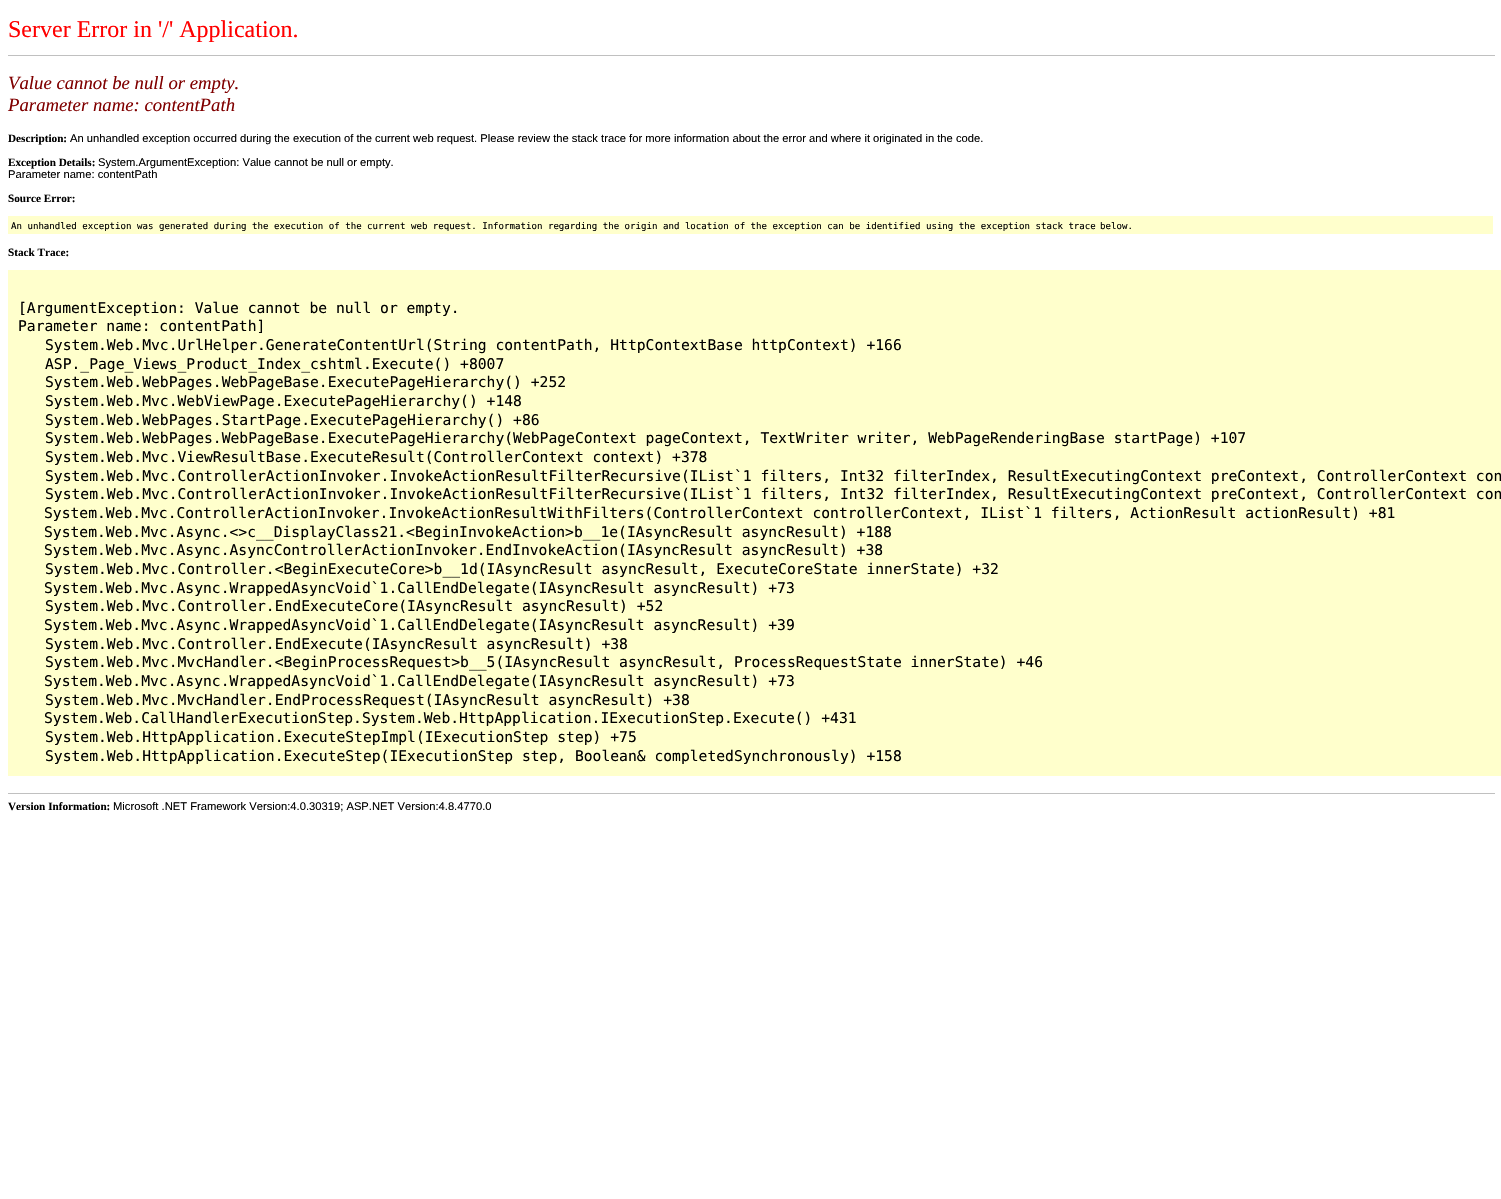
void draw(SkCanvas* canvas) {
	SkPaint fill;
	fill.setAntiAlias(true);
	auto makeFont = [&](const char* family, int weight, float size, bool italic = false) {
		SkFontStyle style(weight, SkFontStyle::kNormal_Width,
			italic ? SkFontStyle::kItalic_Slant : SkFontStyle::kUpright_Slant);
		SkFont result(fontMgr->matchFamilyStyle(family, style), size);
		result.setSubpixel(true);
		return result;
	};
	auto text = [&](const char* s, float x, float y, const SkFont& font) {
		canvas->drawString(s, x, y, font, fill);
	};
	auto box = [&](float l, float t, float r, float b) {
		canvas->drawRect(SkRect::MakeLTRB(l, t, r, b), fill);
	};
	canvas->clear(0xFFFFFFFF);
	fill.setColor(0xFFC0C0C0);
	box(8, 55, 1495, 56);
	fill.setColor(0xFFFFFFCC);
	box(8, 216, 1493, 234);
	box(8, 270, 1501, 776);
	fill.setColor(0xFFC0C0C0);
	box(8, 793, 1495, 794);
	auto font1 = makeFont("Liberation Serif", 400, 24);
	fill.setColor(0xFFFF0000);
	text("Server Error in '/' Application.", 8, 37, font1);
	auto font2 = makeFont("Liberation Serif", 400, 18.75f, true);
	fill.setColor(0xFF800000);
	text("Value cannot be null or empty.", 8, 89, font2);
	text("Parameter name: contentPath", 8, 111, font2);
	auto font3 = makeFont("Liberation Serif", 700, 11.2f);
	fill.setColor(0xFF000000);
	text("Description:", 8, 142, font3);
	auto font4 = makeFont("Liberation Sans", 400, 11.2f);
	text("An unhandled exception occurred during the execution of the current web request. Please review the stack trace for more information about the error and where it originated in the code.", 70, 142, font4);
	text("Exception Details:", 8, 166, font3);
	text("System.ArgumentException: Value cannot be null or empty.", 98, 166, font4);
	text("Parameter name: contentPath", 8, 178, font4);
	text("Source Error:", 8, 202, font3);
	auto font5 = makeFont("DejaVu Sans Mono", 400, 9.1f);
	text("An unhandled exception was generated during the execution of the current web request. Information regarding the origin and location of the exception can be identified using the exception stack trace", 11, 229, font5);
	text("below.", 1100, 229, font5);
	text("Stack Trace:", 8, 256, font3);
	auto font6 = makeFont("DejaVu Sans Mono", 400, 14.67f);
	text("[ArgumentException: Value cannot be null or empty.", 18, 313, font6);
	text("Parameter name: contentPath]", 18, 331, font6);
	text("System.Web.Mvc.UrlHelper.GenerateContentUrl(String contentPath, HttpContextBase httpContext) +166", 45, 350, font6);
	text("ASP._Page_Views_Product_Index_cshtml.Execute() +8007", 45, 369, font6);
	text("System.Web.WebPages.WebPageBase.ExecutePageHierarchy() +252", 45, 387, font6);
	text("System.Web.Mvc.WebViewPage.ExecutePageHierarchy() +148", 45, 406, font6);
	text("System.Web.WebPages.StartPage.ExecutePageHierarchy() +86", 45, 425, font6);
	text("System.Web.WebPages.WebPageBase.ExecutePageHierarchy(WebPageContext pageContext, TextWriter writer, WebPageRenderingBase startPage) +107", 45, 443, font6);
	text("System.Web.Mvc.ViewResultBase.ExecuteResult(ControllerContext context) +378", 45, 462, font6);
	text("System.Web.Mvc.ControllerActionInvoker.InvokeActionResultFilterRecursive(IList`1 filters, Int32 filterIndex, ResultExecutingContext preContext, ControllerContext con", 45, 481, font6);
	text("System.Web.Mvc.ControllerActionInvoker.InvokeActionResultFilterRecursive(IList`1 filters, Int32 filterIndex, ResultExecutingContext preContext, ControllerContext con", 45, 499, font6);
	text("System.Web.Mvc.ControllerActionInvoker.InvokeActionResultWithFilters(ControllerContext controllerContext, IList`1 filters, ActionResult actionResult) +81", 44, 518, font6);
	text("System.Web.Mvc.Async.<>c__DisplayClass21.<BeginInvokeAction>b__1e(IAsyncResult asyncResult) +188", 44, 537, font6);
	text("System.Web.Mvc.Async.AsyncControllerActionInvoker.EndInvokeAction(IAsyncResult asyncResult) +38", 44, 555, font6);
	text("System.Web.Mvc.Controller.<BeginExecuteCore>b__1d(IAsyncResult asyncResult, ExecuteCoreState innerState) +32", 45, 574, font6);
	text("System.Web.Mvc.Async.WrappedAsyncVoid`1.CallEndDelegate(IAsyncResult asyncResult) +73", 44, 593, font6);
	text("System.Web.Mvc.Controller.EndExecuteCore(IAsyncResult asyncResult) +52", 45, 611, font6);
	text("System.Web.Mvc.Async.WrappedAsyncVoid`1.CallEndDelegate(IAsyncResult asyncResult) +39", 44, 630, font6);
	text("System.Web.Mvc.Controller.EndExecute(IAsyncResult asyncResult) +38", 45, 649, font6);
	text("System.Web.Mvc.MvcHandler.<BeginProcessRequest>b__5(IAsyncResult asyncResult, ProcessRequestState innerState) +46", 45, 667, font6);
	text("System.Web.Mvc.Async.WrappedAsyncVoid`1.CallEndDelegate(IAsyncResult asyncResult) +73", 44, 686, font6);
	text("System.Web.Mvc.MvcHandler.EndProcessRequest(IAsyncResult asyncResult) +38", 45, 705, font6);
	text("System.Web.CallHandlerExecutionStep.System.Web.HttpApplication.IExecutionStep.Execute() +431", 44, 723, font6);
	text("System.Web.HttpApplication.ExecuteStepImpl(IExecutionStep step) +75", 45, 742, font6);
	text("System.Web.HttpApplication.ExecuteStep(IExecutionStep step, Boolean& completedSynchronously) +158", 45, 761, font6);
	text("Version Information:", 8, 810, font3);
	text("Microsoft .NET Framework Version:4.0.30319; ASP.NET Version:4.8.4770.0", 113, 810, font4);
}
